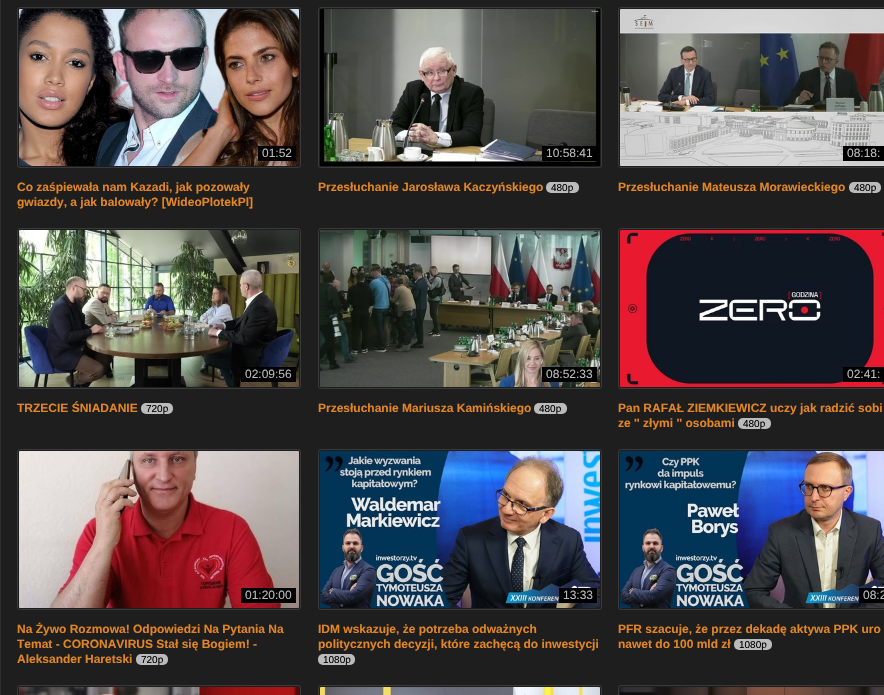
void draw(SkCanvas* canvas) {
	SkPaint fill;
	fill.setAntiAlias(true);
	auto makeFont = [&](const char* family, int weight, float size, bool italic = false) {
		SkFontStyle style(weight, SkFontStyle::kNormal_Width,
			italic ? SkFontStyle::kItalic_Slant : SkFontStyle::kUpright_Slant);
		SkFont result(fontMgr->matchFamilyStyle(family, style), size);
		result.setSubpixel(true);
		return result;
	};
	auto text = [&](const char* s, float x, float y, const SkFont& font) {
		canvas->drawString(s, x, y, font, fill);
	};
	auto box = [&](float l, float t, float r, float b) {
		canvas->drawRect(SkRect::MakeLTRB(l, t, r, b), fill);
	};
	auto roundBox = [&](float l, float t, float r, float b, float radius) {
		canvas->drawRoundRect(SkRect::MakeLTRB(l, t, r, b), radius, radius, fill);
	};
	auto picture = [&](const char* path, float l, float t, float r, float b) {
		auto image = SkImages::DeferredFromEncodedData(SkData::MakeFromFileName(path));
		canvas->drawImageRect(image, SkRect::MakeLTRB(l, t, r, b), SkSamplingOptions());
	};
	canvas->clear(0xFF1E1E1E);
	fill.setColor(0xFF2E2E2E);
	box(0, 0, 1, 695);
	fill.setStyle(SkPaint::kStroke_Style);
	fill.setStrokeWidth(1);
	fill.setColor(0xFF393939);
	canvas->drawRoundRect(SkRect::MakeLTRB(17.5f, 7.5f, 300.5f, 167.5f), 2.5f, 2.5f, fill);
	picture("image0.png", 19, 9, 299, 166);
	fill.setStyle(SkPaint::kFill_Style);
	fill.setColor(0xFF000000);
	box(258, 146, 296, 161);
	fill.setStyle(SkPaint::kStroke_Style);
	fill.setColor(0xFF393939);
	canvas->drawRoundRect(SkRect::MakeLTRB(318.5f, 7.5f, 601.5f, 167.5f), 2.5f, 2.5f, fill);
	picture("image1.png", 320, 9, 600, 166);
	fill.setStyle(SkPaint::kFill_Style);
	fill.setColor(0xFF000000);
	box(542, 146, 597, 161);
	fill.setColor(0xFFBBBBBB);
	roundBox(546, 182, 579, 193, 5);
	fill.setStyle(SkPaint::kStroke_Style);
	fill.setColor(0xFF393939);
	canvas->drawRoundRect(SkRect::MakeLTRB(618.5f, 7.5f, 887.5f, 167.5f), 2.5f, 2.5f, fill);
	picture("image2.png", 620, 9, 884, 166);
	fill.setStyle(SkPaint::kFill_Style);
	fill.setColor(0xFF000000);
	box(843, 146, 884, 161);
	fill.setColor(0xFFBBBBBB);
	roundBox(849, 182, 881, 193, 5);
	fill.setStyle(SkPaint::kStroke_Style);
	fill.setColor(0xFF393939);
	canvas->drawRoundRect(SkRect::MakeLTRB(17.5f, 228.5f, 300.5f, 388.5f), 2.5f, 2.5f, fill);
	picture("image3.png", 19, 230, 299, 387);
	fill.setStyle(SkPaint::kFill_Style);
	fill.setColor(0xFF000000);
	box(241, 367, 296, 382);
	fill.setColor(0xFFBBBBBB);
	roundBox(141, 403, 173, 414, 5);
	fill.setStyle(SkPaint::kStroke_Style);
	fill.setColor(0xFF393939);
	canvas->drawRoundRect(SkRect::MakeLTRB(318.5f, 228.5f, 601.5f, 388.5f), 2.5f, 2.5f, fill);
	picture("image4.png", 320, 230, 600, 387);
	fill.setStyle(SkPaint::kFill_Style);
	fill.setColor(0xFF000000);
	box(542, 367, 597, 382);
	fill.setColor(0xFFBBBBBB);
	roundBox(534, 403, 567, 414, 5);
	fill.setStyle(SkPaint::kStroke_Style);
	fill.setColor(0xFF393939);
	canvas->drawRoundRect(SkRect::MakeLTRB(618.5f, 228.5f, 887.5f, 388.5f), 2.5f, 2.5f, fill);
	picture("image5.png", 620, 230, 884, 387);
	fill.setStyle(SkPaint::kFill_Style);
	fill.setColor(0xFF000000);
	box(843, 367, 884, 382);
	fill.setColor(0xFFBBBBBB);
	roundBox(738, 418, 771, 429, 5);
	fill.setStyle(SkPaint::kStroke_Style);
	fill.setColor(0xFF393939);
	canvas->drawRoundRect(SkRect::MakeLTRB(17.5f, 449.5f, 300.5f, 609.5f), 2.5f, 2.5f, fill);
	picture("image6.png", 19, 451, 299, 608);
	fill.setStyle(SkPaint::kFill_Style);
	fill.setColor(0xFF000000);
	box(241, 588, 296, 603);
	fill.setColor(0xFFBBBBBB);
	roundBox(136, 654, 168, 665, 5);
	fill.setStyle(SkPaint::kStroke_Style);
	fill.setColor(0xFF393939);
	canvas->drawRoundRect(SkRect::MakeLTRB(318.5f, 449.5f, 601.5f, 609.5f), 2.5f, 2.5f, fill);
	picture("image7.png", 320, 451, 600, 608);
	fill.setStyle(SkPaint::kFill_Style);
	fill.setColor(0xFF000000);
	box(559, 588, 597, 603);
	fill.setColor(0xFFBBBBBB);
	roundBox(318, 654, 355, 665, 5);
	fill.setStyle(SkPaint::kStroke_Style);
	fill.setColor(0xFF393939);
	canvas->drawRoundRect(SkRect::MakeLTRB(618.5f, 449.5f, 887.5f, 609.5f), 2.5f, 2.5f, fill);
	picture("image8.png", 620, 451, 884, 608);
	fill.setStyle(SkPaint::kFill_Style);
	fill.setColor(0xFF000000);
	box(859, 588, 884, 603);
	fill.setColor(0xFFBBBBBB);
	roundBox(734, 639, 772, 650, 5);
	fill.setStyle(SkPaint::kStroke_Style);
	fill.setColor(0xFF393939);
	canvas->drawRoundRect(SkRect::MakeLTRB(17.5f, 685.5f, 300.5f, 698.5f), 2.5f, 2.5f, fill);
	picture("image9.png", 19, 687, 299, 695);
	canvas->drawRoundRect(SkRect::MakeLTRB(318.5f, 685.5f, 601.5f, 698.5f), 2.5f, 2.5f, fill);
	picture("image10.png", 320, 687, 600, 695);
	canvas->drawRoundRect(SkRect::MakeLTRB(618.5f, 685.5f, 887.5f, 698.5f), 2.5f, 2.5f, fill);
	picture("image11.png", 620, 687, 884, 695);
	auto font1 = makeFont("Liberation Sans", 400, 12);
	fill.setStyle(SkPaint::kFill_Style);
	fill.setColor(0xFFBBBBBB);
	text("01:52", 262, 157, font1);
	auto font2 = makeFont("Liberation Sans", 700, 12);
	fill.setColor(0xFFE28525);
	text("Co zaśpiewała nam Kazadi, jak pozowały", 17, 191, font2);
	text("gwiazdy, a jak balowały? [WideoPlotekPl]", 17, 206, font2);
	fill.setColor(0xFFBBBBBB);
	text("10:58:41", 546, 157, font1);
	fill.setColor(0xFFE28525);
	text("Przesłuchanie Jarosława Kaczyńskiego", 318, 191, font2);
	auto font3 = makeFont("Liberation Sans", 400, 10);
	fill.setColor(0xFF000000);
	text("480p", 551, 191, font3);
	fill.setColor(0xFFBBBBBB);
	text("08:18:", 847, 157, font1);
	fill.setColor(0xFFE28525);
	text("Przesłuchanie Mateusza Morawieckiego", 618, 191, font2);
	fill.setColor(0xFF000000);
	text("480p", 854, 191, font3);
	fill.setColor(0xFFBBBBBB);
	text("02:09:56", 245, 378, font1);
	fill.setColor(0xFFE28525);
	text("TRZECIE ŚNIADANIE", 17, 412, font2);
	fill.setColor(0xFF000000);
	text("720p", 146, 412, font3);
	fill.setColor(0xFFBBBBBB);
	text("08:52:33", 546, 378, font1);
	fill.setColor(0xFFE28525);
	text("Przesłuchanie Mariusza Kamińskiego", 318, 412, font2);
	fill.setColor(0xFF000000);
	text("480p", 539, 412, font3);
	fill.setColor(0xFFBBBBBB);
	text("02:41:", 847, 378, font1);
	fill.setColor(0xFFE28525);
	text("Pan RAFAŁ ZIEMKIEWICZ uczy jak radzić sobi", 618, 412, font2);
	text("ze '' złymi '' osobami", 618, 427, font2);
	fill.setColor(0xFF000000);
	text("480p", 743, 427, font3);
	fill.setColor(0xFFBBBBBB);
	text("01:20:00", 245, 599, font1);
	fill.setColor(0xFFE28525);
	text("Na Żywo Rozmowa! Odpowiedzi Na Pytania Na", 17, 633, font2);
	text("Temat - CORONAVIRUS Stał się Bogiem! -", 17, 648, font2);
	text("Aleksander Haretski", 17, 663, font2);
	fill.setColor(0xFF000000);
	text("720p", 141, 663, font3);
	fill.setColor(0xFFBBBBBB);
	text("13:33", 563, 599, font1);
	fill.setColor(0xFFE28525);
	text("IDM wskazuje, że potrzeba odważnych", 318, 633, font2);
	text("politycznych decyzji, które zachęcą do inwestycji", 318, 648, font2);
	fill.setColor(0xFF000000);
	text("1080p", 323, 663, font3);
	fill.setColor(0xFFBBBBBB);
	text("08:2", 863, 599, font1);
	fill.setColor(0xFFE28525);
	text("PFR szacuje, że przez dekadę aktywa PPK uro", 618, 633, font2);
	text("nawet do 100 mld zł", 618, 648, font2);
	fill.setColor(0xFF000000);
	text("1080p", 739, 648, font3);
}
